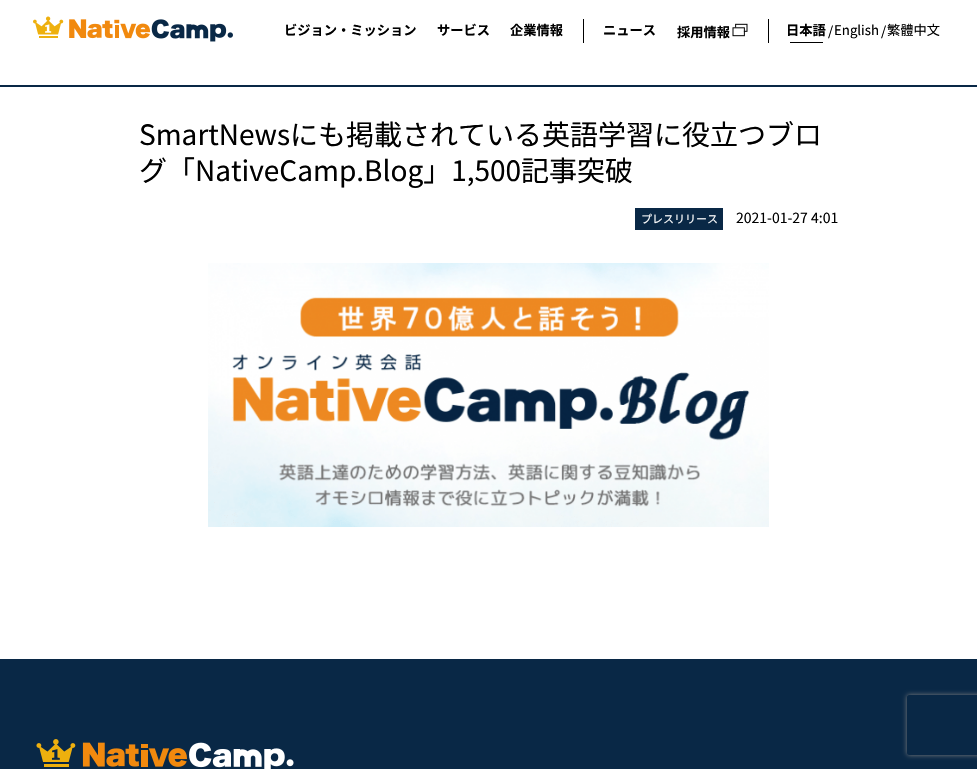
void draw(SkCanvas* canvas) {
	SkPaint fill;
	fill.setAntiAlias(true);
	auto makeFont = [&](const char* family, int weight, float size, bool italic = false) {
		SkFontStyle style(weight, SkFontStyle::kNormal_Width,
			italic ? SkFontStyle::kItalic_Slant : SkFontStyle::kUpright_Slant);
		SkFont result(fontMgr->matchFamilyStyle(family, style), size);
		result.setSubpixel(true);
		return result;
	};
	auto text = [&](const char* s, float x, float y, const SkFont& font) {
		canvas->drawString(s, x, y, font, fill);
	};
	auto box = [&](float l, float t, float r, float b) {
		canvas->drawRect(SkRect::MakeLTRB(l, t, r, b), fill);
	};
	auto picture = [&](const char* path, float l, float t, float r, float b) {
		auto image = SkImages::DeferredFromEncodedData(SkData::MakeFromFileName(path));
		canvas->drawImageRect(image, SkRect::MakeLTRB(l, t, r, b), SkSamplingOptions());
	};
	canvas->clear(0xFFFFFFFF);
	fill.setColor(0xFF092846);
	box(0, 85, 977, 87);
	picture("image0.png", 33, 16, 233, 42);
	fill.setColor(0xFF000000);
	box(583, 19, 584, 43);
	picture("image1.png", 732, 23, 748, 37);
	box(768, 19, 769, 43);
	box(790, 42, 823, 43);
	fill.setColor(0xFF092846);
	box(635, 208, 723, 230);
	picture("image2.png", 208, 263, 769, 527);
	box(0, 659, 977, 769);
	picture("image3.png", 36, 739, 294, 769);
	canvas->save();
	canvas->clipPath(SkPathBuilder(SkPathFillType::kEvenOdd).moveTo(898, 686).lineTo(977, 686).lineTo(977, 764).lineTo(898, 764).close().moveTo(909, 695).lineTo(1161, 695).cubicTo(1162, 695, 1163, 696, 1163, 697).lineTo(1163, 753).cubicTo(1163, 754, 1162, 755, 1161, 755).lineTo(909, 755).cubicTo(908, 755, 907, 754, 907, 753).lineTo(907, 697).cubicTo(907, 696, 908, 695, 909, 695).close().detach(), true);
	fill.setColor(0xFF808080);
	fill.setMaskFilter(SkMaskFilter::MakeBlur(kNormal_SkBlurStyle, 2.5f));
	canvas->drawRoundRect(SkRect::MakeLTRB(907, 695, 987, 755), 2, 2, fill);
	fill.setMaskFilter(nullptr);
	canvas->restore();
	auto font1 = makeFont("Noto Sans JP", 700, 13.25f);
	fill.setColor(0xFF000000);
	text("ビジョン・ミッション", 284, 35, font1);
	text("サービス", 437, 35, font1);
	text("企業情報", 510, 35, font1);
	text("ニュース", 603, 35, font1);
	text("採用情報", 677, 37, font1);
	text("日本語", 786, 35, font1);
	auto font2 = makeFont("Noto Sans JP", 400, 13.25f);
	text("/", 828, 36, font2);
	text("English", 834, 35, font2);
	text("/", 881, 36, font2);
	text("繁體中文", 887, 35, font2);
	auto font3 = makeFont("Noto Sans JP", 400, 28);
	text("SmartNewsにも掲載されている英語学習に役立つブロ", 139, 145, font3);
	text("グ「NativeCamp.Blog」1,500記事突破", 139, 181, font3);
	auto font4 = makeFont("Noto Sans JP", 400, 11);
	fill.setColor(0xFFFFFFFF);
	text("プレスリリース", 641, 223, font4);
	auto font5 = makeFont("Noto Sans JP", 400, 14);
	fill.setColor(0xFF000000);
	text("2021-01-27 4:01", 736, 223, font5);
}
